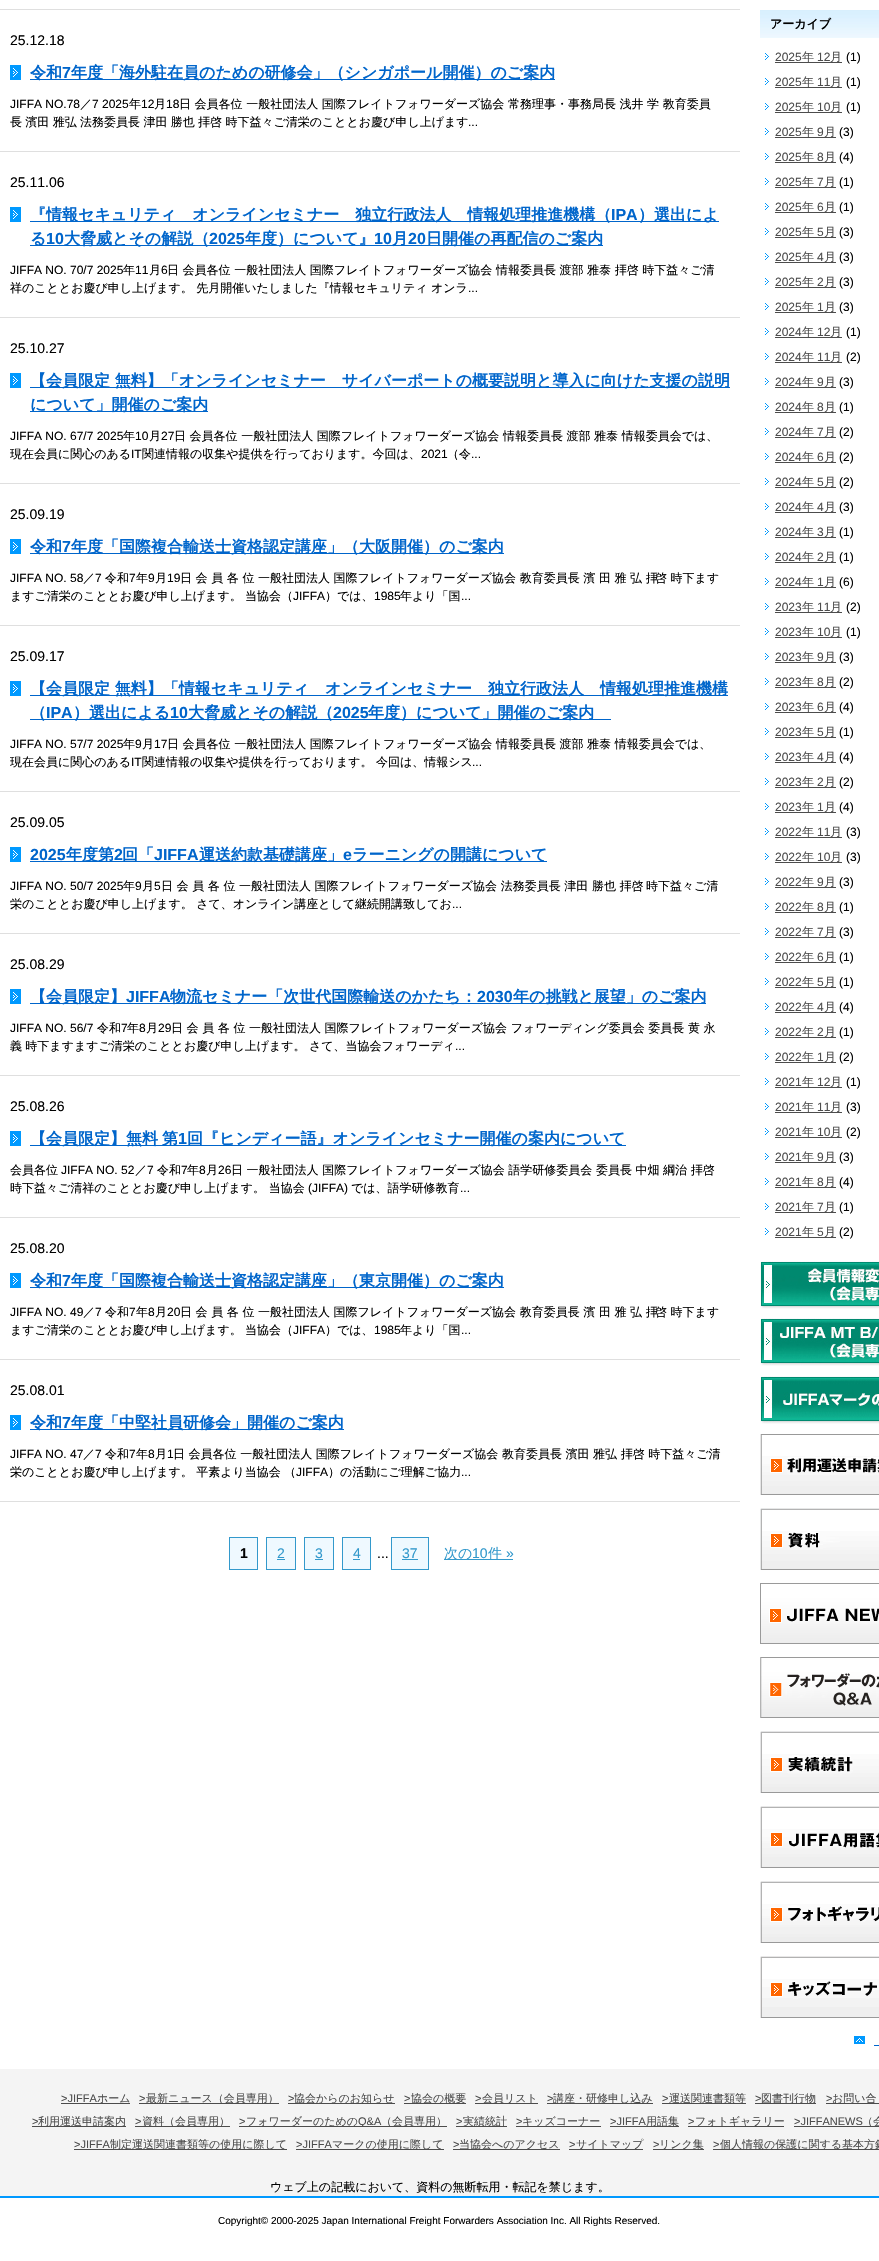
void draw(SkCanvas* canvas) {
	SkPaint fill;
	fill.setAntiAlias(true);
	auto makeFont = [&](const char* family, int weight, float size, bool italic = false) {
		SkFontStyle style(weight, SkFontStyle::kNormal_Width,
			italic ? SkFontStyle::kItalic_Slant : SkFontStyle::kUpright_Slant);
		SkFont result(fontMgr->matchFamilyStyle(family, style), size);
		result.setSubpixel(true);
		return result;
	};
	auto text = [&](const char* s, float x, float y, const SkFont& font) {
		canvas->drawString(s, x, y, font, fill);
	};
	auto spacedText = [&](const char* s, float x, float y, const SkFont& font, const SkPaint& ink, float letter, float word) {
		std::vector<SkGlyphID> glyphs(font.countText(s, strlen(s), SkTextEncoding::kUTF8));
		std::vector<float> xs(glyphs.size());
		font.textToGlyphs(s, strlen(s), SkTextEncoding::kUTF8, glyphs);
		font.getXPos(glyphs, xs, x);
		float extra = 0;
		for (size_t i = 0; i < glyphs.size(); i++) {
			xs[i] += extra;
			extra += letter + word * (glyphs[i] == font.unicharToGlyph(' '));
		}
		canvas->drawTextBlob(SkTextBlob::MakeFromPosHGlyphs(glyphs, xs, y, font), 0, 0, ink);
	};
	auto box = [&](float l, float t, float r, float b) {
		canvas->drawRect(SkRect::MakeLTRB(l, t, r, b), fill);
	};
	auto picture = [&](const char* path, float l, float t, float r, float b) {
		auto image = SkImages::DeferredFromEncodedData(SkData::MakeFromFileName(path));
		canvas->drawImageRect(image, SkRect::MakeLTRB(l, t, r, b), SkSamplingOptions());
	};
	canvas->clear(0xFFFFFFFF);
	fill.setColor(0xFFDFDFDF);
	box(0, 9, 740, 10);
	box(0, 151, 740, 152);
	picture("image0.png", 10, 65, 21, 80);
	fill.setColor(0xFF0065CB);
	box(30, 79, 555, 80);
	fill.setColor(0xFFDFDFDF);
	box(0, 317, 740, 318);
	picture("image0.png", 10, 207, 21, 222);
	fill.setColor(0xFF0065CB);
	box(30, 221, 719, 222);
	box(30, 245, 603, 246);
	fill.setColor(0xFFDFDFDF);
	box(0, 483, 740, 484);
	picture("image0.png", 10, 373, 21, 388);
	fill.setColor(0xFF0065CB);
	box(30, 387, 730, 388);
	box(30, 411, 208, 412);
	fill.setColor(0xFFDFDFDF);
	box(0, 625, 740, 626);
	picture("image0.png", 10, 539, 21, 554);
	fill.setColor(0xFF0065CB);
	box(30, 553, 504, 554);
	fill.setColor(0xFFDFDFDF);
	box(0, 791, 740, 792);
	picture("image0.png", 10, 681, 21, 696);
	fill.setColor(0xFF0065CB);
	box(30, 695, 728, 696);
	box(30, 719, 611, 720);
	fill.setColor(0xFFDFDFDF);
	box(0, 933, 740, 934);
	picture("image0.png", 10, 847, 21, 862);
	fill.setColor(0xFF0065CB);
	box(30, 861, 547, 862);
	fill.setColor(0xFFDFDFDF);
	box(0, 1075, 740, 1076);
	picture("image0.png", 10, 989, 21, 1004);
	fill.setColor(0xFF0065CB);
	box(30, 1003, 706, 1004);
	fill.setColor(0xFFDFDFDF);
	box(0, 1217, 740, 1218);
	picture("image0.png", 10, 1131, 21, 1146);
	fill.setColor(0xFF0065CB);
	box(30, 1145, 626, 1146);
	fill.setColor(0xFFDFDFDF);
	box(0, 1359, 740, 1360);
	picture("image0.png", 10, 1273, 21, 1288);
	fill.setColor(0xFF0065CB);
	box(30, 1287, 504, 1288);
	fill.setColor(0xFFDFDFDF);
	box(0, 1501, 740, 1502);
	picture("image0.png", 10, 1415, 21, 1430);
	fill.setColor(0xFF0065CB);
	box(30, 1429, 344, 1430);
	fill.setColor(0xFFEFF9FF);
	canvas->drawRect(SkRect::MakeLTRB(229.5f, 1537.5f, 257.5f, 1569.5f), fill);
	fill.setStyle(SkPaint::kStroke_Style);
	fill.setStrokeWidth(1);
	fill.setColor(0xFF3399CC);
	canvas->drawRect(SkRect::MakeLTRB(229.5f, 1537.5f, 257.5f, 1569.5f), fill);
	fill.setStyle(SkPaint::kFill_Style);
	fill.setColor(0xFFEFF9FF);
	canvas->drawRect(SkRect::MakeLTRB(266.5f, 1537.5f, 295.5f, 1569.5f), fill);
	fill.setStyle(SkPaint::kStroke_Style);
	fill.setColor(0xFF3399CC);
	canvas->drawRect(SkRect::MakeLTRB(266.5f, 1537.5f, 295.5f, 1569.5f), fill);
	fill.setStyle(SkPaint::kFill_Style);
	box(277, 1559, 285, 1560);
	fill.setColor(0xFFEFF9FF);
	canvas->drawRect(SkRect::MakeLTRB(304.5f, 1537.5f, 333.5f, 1569.5f), fill);
	fill.setStyle(SkPaint::kStroke_Style);
	fill.setColor(0xFF3399CC);
	canvas->drawRect(SkRect::MakeLTRB(304.5f, 1537.5f, 333.5f, 1569.5f), fill);
	fill.setStyle(SkPaint::kFill_Style);
	box(315, 1559, 323, 1560);
	fill.setColor(0xFFEFF9FF);
	canvas->drawRect(SkRect::MakeLTRB(342.5f, 1537.5f, 370.5f, 1569.5f), fill);
	fill.setStyle(SkPaint::kStroke_Style);
	fill.setColor(0xFF3399CC);
	canvas->drawRect(SkRect::MakeLTRB(342.5f, 1537.5f, 370.5f, 1569.5f), fill);
	fill.setStyle(SkPaint::kFill_Style);
	box(353, 1559, 360, 1560);
	fill.setColor(0xFFEFF9FF);
	canvas->drawRect(SkRect::MakeLTRB(391.5f, 1537.5f, 428.5f, 1569.5f), fill);
	fill.setStyle(SkPaint::kStroke_Style);
	fill.setColor(0xFF3399CC);
	canvas->drawRect(SkRect::MakeLTRB(391.5f, 1537.5f, 428.5f, 1569.5f), fill);
	fill.setStyle(SkPaint::kFill_Style);
	box(402, 1559, 418, 1560);
	box(444, 1559, 513, 1560);
	picture("image1.png", 760, 10, 879, 38);
	picture("image2.png", 765, 53, 769, 60);
	fill.setColor(0xFF4C4C4C);
	box(775, 62, 842, 63);
	picture("image2.png", 765, 78, 769, 85);
	box(775, 87, 842, 88);
	picture("image2.png", 765, 103, 769, 110);
	box(775, 112, 842, 113);
	picture("image2.png", 765, 128, 769, 135);
	box(775, 137, 836, 138);
	picture("image2.png", 765, 153, 769, 160);
	box(775, 162, 836, 163);
	picture("image2.png", 765, 178, 769, 185);
	box(775, 187, 836, 188);
	picture("image2.png", 765, 203, 769, 210);
	box(775, 212, 836, 213);
	picture("image2.png", 765, 228, 769, 235);
	box(775, 237, 836, 238);
	picture("image2.png", 765, 253, 769, 260);
	box(775, 262, 836, 263);
	picture("image2.png", 765, 278, 769, 285);
	box(775, 287, 836, 288);
	picture("image2.png", 765, 303, 769, 310);
	box(775, 312, 836, 313);
	picture("image2.png", 765, 328, 769, 335);
	box(775, 337, 842, 338);
	picture("image2.png", 765, 353, 769, 360);
	box(775, 362, 842, 363);
	picture("image2.png", 765, 378, 769, 385);
	box(775, 387, 836, 388);
	picture("image2.png", 765, 403, 769, 410);
	box(775, 412, 836, 413);
	picture("image2.png", 765, 428, 769, 435);
	box(775, 437, 836, 438);
	picture("image2.png", 765, 453, 769, 460);
	box(775, 462, 836, 463);
	picture("image2.png", 765, 478, 769, 485);
	box(775, 487, 836, 488);
	picture("image2.png", 765, 503, 769, 510);
	box(775, 512, 836, 513);
	picture("image2.png", 765, 528, 769, 535);
	box(775, 537, 836, 538);
	picture("image2.png", 765, 553, 769, 560);
	box(775, 562, 836, 563);
	picture("image2.png", 765, 578, 769, 585);
	box(775, 587, 836, 588);
	picture("image2.png", 765, 603, 769, 610);
	box(775, 612, 842, 613);
	picture("image2.png", 765, 628, 769, 635);
	box(775, 637, 842, 638);
	picture("image2.png", 765, 653, 769, 660);
	box(775, 662, 836, 663);
	picture("image2.png", 765, 678, 769, 685);
	box(775, 687, 836, 688);
	picture("image2.png", 765, 703, 769, 710);
	box(775, 712, 836, 713);
	picture("image2.png", 765, 728, 769, 735);
	box(775, 737, 836, 738);
	picture("image2.png", 765, 753, 769, 760);
	box(775, 762, 836, 763);
	picture("image2.png", 765, 778, 769, 785);
	box(775, 787, 836, 788);
	picture("image2.png", 765, 803, 769, 810);
	box(775, 812, 836, 813);
	picture("image2.png", 765, 828, 769, 835);
	box(775, 837, 842, 838);
	picture("image2.png", 765, 853, 769, 860);
	box(775, 862, 842, 863);
	picture("image2.png", 765, 878, 769, 885);
	box(775, 887, 836, 888);
	picture("image2.png", 765, 903, 769, 910);
	box(775, 912, 836, 913);
	picture("image2.png", 765, 928, 769, 935);
	box(775, 937, 836, 938);
	picture("image2.png", 765, 953, 769, 960);
	box(775, 962, 836, 963);
	picture("image2.png", 765, 978, 769, 985);
	box(775, 987, 836, 988);
	picture("image2.png", 765, 1003, 769, 1010);
	box(775, 1012, 836, 1013);
	picture("image2.png", 765, 1028, 769, 1035);
	box(775, 1037, 836, 1038);
	picture("image2.png", 765, 1053, 769, 1060);
	box(775, 1062, 836, 1063);
	picture("image2.png", 765, 1078, 769, 1085);
	box(775, 1087, 842, 1088);
	picture("image2.png", 765, 1103, 769, 1110);
	box(775, 1112, 842, 1113);
	picture("image2.png", 765, 1128, 769, 1135);
	box(775, 1137, 842, 1138);
	picture("image2.png", 765, 1153, 769, 1160);
	box(775, 1162, 836, 1163);
	picture("image2.png", 765, 1178, 769, 1185);
	box(775, 1187, 836, 1188);
	picture("image2.png", 765, 1203, 769, 1210);
	box(775, 1212, 836, 1213);
	picture("image2.png", 765, 1228, 769, 1235);
	box(775, 1237, 836, 1238);
	picture("image3.png", 760, 1261, 879, 1309);
	picture("image4.png", 760, 1318, 879, 1366);
	picture("image5.png", 760, 1376, 879, 1424);
	picture("image6.png", 760, 1434, 879, 1495);
	picture("image7.png", 760, 1508, 879, 1570);
	picture("image8.png", 760, 1583, 879, 1644);
	picture("image9.png", 760, 1657, 879, 1718);
	picture("image10.png", 760, 1731, 879, 1793);
	picture("image11.png", 760, 1806, 879, 1868);
	picture("image12.png", 760, 1881, 879, 1943);
	picture("image13.png", 760, 1956, 879, 2018);
	picture("image14.png", 854, 2036, 865, 2044);
	fill.setColor(0xFF0065CB);
	box(874, 2045, 879, 2046);
	fill.setColor(0xFFF4F4F4);
	box(0, 2069, 879, 2196);
	fill.setColor(0xFF0099FF);
	box(0, 2196, 879, 2198);
	fill.setColor(0xFF4C4C4C);
	box(61, 2103, 130, 2104);
	box(139, 2103, 279, 2104);
	box(288, 2103, 395, 2104);
	box(404, 2103, 466, 2104);
	box(475, 2103, 538, 2104);
	box(547, 2103, 653, 2104);
	box(662, 2103, 746, 2104);
	box(755, 2103, 816, 2104);
	box(826, 2103, 879, 2104);
	box(32, 2126, 126, 2127);
	box(135, 2126, 230, 2127);
	box(239, 2126, 447, 2127);
	box(456, 2126, 507, 2127);
	box(516, 2126, 601, 2127);
	box(610, 2126, 679, 2127);
	box(688, 2126, 784, 2127);
	box(794, 2126, 879, 2127);
	box(74, 2149, 287, 2150);
	box(296, 2149, 444, 2150);
	box(453, 2149, 560, 2150);
	box(569, 2149, 643, 2150);
	box(653, 2149, 704, 2150);
	box(713, 2149, 879, 2150);
	auto font1 = makeFont("Liberation Sans", 400, 14);
	fill.setColor(0xFF000000);
	text("25.12.18", 10, 45, font1);
	auto font2 = makeFont("WenQuanYi Zen Hei", 700, 16);
	fill.setColor(0xFF0065CB);
	text("令和", 30, 78, font2);
	auto font3 = makeFont("Liberation Sans", 700, 16);
	text("7", 62, 78, font3);
	text("年度「海外駐在員のための研修会」（シンガポール開催）のご案内", 71, 78, font2);
	auto font4 = makeFont("Liberation Sans", 400, 12);
	fill.setColor(0xFF000000);
	text("JIFFA NO.78", 10, 108, font4);
	auto font5 = makeFont("WenQuanYi Zen Hei", 500, 12);
	text("／", 80, 108, font5);
	text("7 2025", 92, 108, font4);
	text("年", 129, 108, font5);
	text("12", 141, 108, font4);
	text("月", 154, 108, font5);
	text("18", 166, 108, font4);
	text("日 会員各位 一般社団法人 国際フレイトフォワーダーズ協会 常務理事・事務局長 浅井 学 教育委員", 179, 108, font5);
	spacedText("長 濱田 雅弘 法務委員長 津田 勝也 拝啓 時下益々ご清栄のこととお慶び申し上げます", 10, 126, font5, fill, 0, -0.25f);
	text("...", 468, 126, font4);
	text("25.11.06", 10, 187, font1);
	fill.setColor(0xFF0065CB);
	text("『情報セキュリティ　オンラインセミナー　独立行政法人　情報処理推進機構（", 30, 220, font2);
	text("IPA", 611, 220, font3);
	text("）選出によ", 638, 220, font2);
	text("る", 30, 244, font2);
	text("10", 46, 244, font3);
	text("大脅威とその解説（", 64, 244, font2);
	text("2025", 209, 244, font3);
	text("年度）について』", 245, 244, font2);
	text("10", 374, 244, font3);
	text("月", 392, 244, font2);
	text("20", 408, 244, font3);
	text("日開催の再配信のご案内", 426, 244, font2);
	fill.setColor(0xFF000000);
	text("JIFFA NO. 70/7 2025", 10, 274, font4);
	text("年", 123, 274, font5);
	text("11", 135, 274, font4);
	text("月", 149, 274, font5);
	text("6", 161, 274, font4);
	text("日 会員各位 一般社団法人 国際フレイトフォワーダーズ協会 情報委員長 渡部 雅泰 拝啓 時下益々ご清", 167, 274, font5);
	spacedText("祥のこととお慶び申し上げます。 先月開催いたしました『情報セキュリティ オンラ", 10, 292, font5, fill, 0, -0.25f);
	text("...", 468, 292, font4);
	text("25.10.27", 10, 353, font1);
	fill.setColor(0xFF0065CB);
	text("【会員限定 無料】「オンラインセミナー　サイバーポートの概要説明と導入に向けた支援の説明", 30, 386, font2);
	text("について」開催のご案内", 30, 410, font2);
	fill.setColor(0xFF000000);
	text("JIFFA NO. 67/7 2025", 10, 440, font4);
	text("年", 123, 440, font5);
	text("10", 135, 440, font4);
	text("月", 149, 440, font5);
	text("27", 161, 440, font4);
	text("日 会員各位 一般社団法人 国際フレイトフォワーダーズ協会 情報委員長 渡部 雅泰 情報委員会では、", 174, 440, font5);
	text("現在会員に関心のある", 10, 458, font5);
	text("IT", 131, 458, font4);
	text("関連情報の収集や提供を行っております。今回は、", 142, 458, font5);
	text("2021", 421, 458, font4);
	text("（令", 447, 458, font5);
	text("...", 471, 458, font4);
	text("25.09.19", 10, 519, font1);
	fill.setColor(0xFF0065CB);
	text("令和", 30, 552, font2);
	text("7", 62, 552, font3);
	text("年度「国際複合輸送士資格認定講座」（大阪開催）のご案内", 71, 552, font2);
	fill.setColor(0xFF000000);
	text("JIFFA NO. 58", 10, 582, font4);
	text("／", 83, 582, font5);
	text("7", 95, 582, font4);
	text("令和", 105, 582, font5);
	text("7", 129, 582, font4);
	text("年", 136, 582, font5);
	text("9", 148, 582, font4);
	text("月", 155, 582, font5);
	text("19", 167, 582, font4);
	text("日 会 員 各 位 一般社団法人 国際フレイトフォワーダーズ協会 教育委員長 濱 田 雅 弘 拝", 180, 582, font5);
	text("啓 時下ます", 655, 582, font5);
	spacedText("ますご清栄のこととお慶び申し上げます。 当協会（", 10, 600, font5, fill, 0, -0.25f);
	text("JIFFA", 293, 600, font4);
	text("）では、", 325, 600, font5);
	text("1985", 374, 600, font4);
	text("年より「国", 400, 600, font5);
	text("...", 461, 600, font4);
	text("25.09.17", 10, 661, font1);
	fill.setColor(0xFF0065CB);
	text("【会員限定 無料】「情報セキュリティ　オンラインセミナー　独立行政法人　情報処理推進機構", 30, 694, font2);
	text("（", 30, 718, font2);
	text("IPA", 46, 718, font3);
	text("）選出による", 73, 718, font2);
	text("10", 170, 718, font3);
	text("大脅威とその解説（", 188, 718, font2);
	text("2025", 333, 718, font3);
	text("年度）について」開催のご案内", 368, 718, font2);
	fill.setColor(0xFF000000);
	text("JIFFA NO. 57/7 2025", 10, 748, font4);
	text("年", 123, 748, font5);
	text("9", 135, 748, font4);
	text("月", 142, 748, font5);
	text("17", 154, 748, font4);
	text("日 会員各位 一般社団法人 国際フレイトフォワーダーズ協会 情報委員長 渡部 雅泰 情報委員会では、", 167, 748, font5);
	text("現在会員に関心のある", 10, 766, font5);
	text("IT", 131, 766, font4);
	spacedText("関連情報の収集や提供を行っております。 今回は、情報シス", 142, 766, font5, fill, 0, -0.25f);
	text("...", 472, 766, font4);
	text("25.09.05", 10, 827, font1);
	fill.setColor(0xFF0065CB);
	text("2025", 30, 860, font3);
	text("年度第", 66, 860, font2);
	text("2", 114, 860, font3);
	text("回「", 122, 860, font2);
	text("JIFFA", 154, 860, font3);
	text("運送約款基礎講座」", 199, 860, font2);
	text("e", 343, 860, font3);
	text("ラーニングの開講について", 352, 860, font2);
	fill.setColor(0xFF000000);
	text("JIFFA NO. 50/7 2025", 10, 890, font4);
	text("年", 123, 890, font5);
	text("9", 135, 890, font4);
	text("月", 142, 890, font5);
	text("5", 154, 890, font4);
	text("日 会 員 各 位 一般社団法人 国際フレイトフォワーダーズ協会 法務委員長 津田 勝也 拝啓", 161, 890, font5);
	text("時下益々ご清", 646, 890, font5);
	spacedText("栄のこととお慶び申し上げます。 さて、オンライン講座として継続開講致してお", 10, 908, font5, fill, 0, -0.25f);
	text("...", 452, 908, font4);
	text("25.08.29", 10, 969, font1);
	fill.setColor(0xFF0065CB);
	text("【会員限定】", 30, 1002, font2);
	text("JIFFA", 126, 1002, font3);
	text("物流セミナー「次世代国際輸送のかたち：", 170, 1002, font2);
	text("2030", 477, 1002, font3);
	text("年の挑戦と展望」のご案内", 513, 1002, font2);
	fill.setColor(0xFF000000);
	text("JIFFA NO. 56/7", 10, 1032, font4);
	text("令和", 97, 1032, font5);
	text("7", 121, 1032, font4);
	text("年", 127, 1032, font5);
	text("8", 139, 1032, font4);
	text("月", 146, 1032, font5);
	text("29", 158, 1032, font4);
	text("日 会 員 各 位 一般社団法人 国際フレイトフォワーダーズ協会 フォワーディング委員会 委員長 黄 永", 171, 1032, font5);
	spacedText("義 時下ますますご清栄のこととお慶び申し上げます。 さて、当協会フォワーディ", 10, 1050, font5, fill, 0, -0.25f);
	text("...", 455, 1050, font4);
	text("25.08.26", 10, 1111, font1);
	fill.setColor(0xFF0065CB);
	text("【会員限定】無料", 30, 1144, font2);
	text("第", 162, 1144, font2);
	text("1", 178, 1144, font3);
	text("回『ヒンディー語』オンラインセミナー開催の案内について", 187, 1144, font2);
	fill.setColor(0xFF000000);
	text("会員各位", 10, 1174, font5);
	text("JIFFA NO. 52", 61, 1174, font4);
	text("／", 135, 1174, font5);
	text("7", 147, 1174, font4);
	text("令和", 157, 1174, font5);
	text("7", 181, 1174, font4);
	text("年", 187, 1174, font5);
	text("8", 199, 1174, font4);
	text("月", 206, 1174, font5);
	text("26", 218, 1174, font4);
	text("日 一般社団法人 国際フレイトフォワーダーズ協会 語学研修委員会 委員長 中畑 綱治 拝啓", 231, 1174, font5);
	text("時下益々ご清祥のこととお慶び申し上げます。 当協会", 10, 1192, font5);
	text("(JIFFA)", 308, 1192, font4);
	text("では、語学研修教育", 351, 1192, font5);
	text("...", 460, 1192, font4);
	text("25.08.20", 10, 1253, font1);
	fill.setColor(0xFF0065CB);
	text("令和", 30, 1286, font2);
	text("7", 62, 1286, font3);
	text("年度「国際複合輸送士資格認定講座」（東京開催）のご案内", 71, 1286, font2);
	fill.setColor(0xFF000000);
	text("JIFFA NO. 49", 10, 1316, font4);
	text("／", 83, 1316, font5);
	text("7", 95, 1316, font4);
	text("令和", 105, 1316, font5);
	text("7", 129, 1316, font4);
	text("年", 136, 1316, font5);
	text("8", 148, 1316, font4);
	text("月", 155, 1316, font5);
	text("20", 167, 1316, font4);
	text("日 会 員 各 位 一般社団法人 国際フレイトフォワーダーズ協会 教育委員長 濱 田 雅 弘 拝", 180, 1316, font5);
	text("啓 時下ます", 655, 1316, font5);
	spacedText("ますご清栄のこととお慶び申し上げます。 当協会（", 10, 1334, font5, fill, 0, -0.25f);
	text("JIFFA", 293, 1334, font4);
	text("）では、", 325, 1334, font5);
	text("1985", 374, 1334, font4);
	text("年より「国", 400, 1334, font5);
	text("...", 461, 1334, font4);
	text("25.08.01", 10, 1395, font1);
	fill.setColor(0xFF0065CB);
	text("令和", 30, 1428, font2);
	text("7", 62, 1428, font3);
	text("年度「中堅社員研修会」開催のご案内", 71, 1428, font2);
	fill.setColor(0xFF000000);
	text("JIFFA NO. 47", 10, 1458, font4);
	text("／", 83, 1458, font5);
	text("7", 95, 1458, font4);
	text("令和", 105, 1458, font5);
	text("7", 129, 1458, font4);
	text("年", 136, 1458, font5);
	text("8", 148, 1458, font4);
	text("月", 155, 1458, font5);
	text("1", 167, 1458, font4);
	text("日 会員各位 一般社団法人 国際フレイトフォワーダーズ協会 教育委員長 濱田 雅弘 拝啓 時下益々ご清", 173, 1458, font5);
	spacedText("栄のこととお慶び申し上げます。 平素より当協会 （", 10, 1476, font5, fill, 0, -0.25f);
	text("JIFFA", 296, 1476, font4);
	text("）の活動にご理解ご協力", 328, 1476, font5);
	text("...", 461, 1476, font4);
	auto font6 = makeFont("Liberation Sans", 700, 14);
	text("1", 240, 1558, font6);
	fill.setColor(0xFF3399CC);
	text("2", 277, 1558, font1);
	text("3", 315, 1558, font1);
	text("4", 353, 1558, font1);
	fill.setColor(0xFF000000);
	text("...", 377, 1558, font1);
	fill.setColor(0xFF3399CC);
	text("37", 402, 1558, font1);
	auto font7 = makeFont("WenQuanYi Zen Hei", 500, 14);
	text("次の", 444, 1558, font7);
	text("10", 472, 1558, font1);
	text("件", 488, 1558, font7);
	text("»", 506, 1558, font1);
	auto font8 = makeFont("WenQuanYi Zen Hei", 700, 12);
	fill.setColor(0xFF000000);
	text("アーカイブ", 770, 28, font8);
	fill.setColor(0xFF4C4C4C);
	text("2025", 775, 61, font4);
	text("年", 802, 61, font5);
	text("12", 817, 61, font4);
	text("月", 830, 61, font5);
	fill.setColor(0xFF000000);
	text("(1)", 846, 61, font4);
	fill.setColor(0xFF4C4C4C);
	text("2025", 775, 86, font4);
	text("年", 802, 86, font5);
	text("11", 817, 86, font4);
	text("月", 830, 86, font5);
	fill.setColor(0xFF000000);
	text("(1)", 846, 86, font4);
	fill.setColor(0xFF4C4C4C);
	text("2025", 775, 111, font4);
	text("年", 802, 111, font5);
	text("10", 817, 111, font4);
	text("月", 830, 111, font5);
	fill.setColor(0xFF000000);
	text("(1)", 846, 111, font4);
	fill.setColor(0xFF4C4C4C);
	text("2025", 775, 136, font4);
	text("年", 802, 136, font5);
	text("9", 817, 136, font4);
	text("月", 824, 136, font5);
	fill.setColor(0xFF000000);
	text("(3)", 839, 136, font4);
	fill.setColor(0xFF4C4C4C);
	text("2025", 775, 161, font4);
	text("年", 802, 161, font5);
	text("8", 817, 161, font4);
	text("月", 824, 161, font5);
	fill.setColor(0xFF000000);
	text("(4)", 839, 161, font4);
	fill.setColor(0xFF4C4C4C);
	text("2025", 775, 186, font4);
	text("年", 802, 186, font5);
	text("7", 817, 186, font4);
	text("月", 824, 186, font5);
	fill.setColor(0xFF000000);
	text("(1)", 839, 186, font4);
	fill.setColor(0xFF4C4C4C);
	text("2025", 775, 211, font4);
	text("年", 802, 211, font5);
	text("6", 817, 211, font4);
	text("月", 824, 211, font5);
	fill.setColor(0xFF000000);
	text("(1)", 839, 211, font4);
	fill.setColor(0xFF4C4C4C);
	text("2025", 775, 236, font4);
	text("年", 802, 236, font5);
	text("5", 817, 236, font4);
	text("月", 824, 236, font5);
	fill.setColor(0xFF000000);
	text("(3)", 839, 236, font4);
	fill.setColor(0xFF4C4C4C);
	text("2025", 775, 261, font4);
	text("年", 802, 261, font5);
	text("4", 817, 261, font4);
	text("月", 824, 261, font5);
	fill.setColor(0xFF000000);
	text("(3)", 839, 261, font4);
	fill.setColor(0xFF4C4C4C);
	text("2025", 775, 286, font4);
	text("年", 802, 286, font5);
	text("2", 817, 286, font4);
	text("月", 824, 286, font5);
	fill.setColor(0xFF000000);
	text("(3)", 839, 286, font4);
	fill.setColor(0xFF4C4C4C);
	text("2025", 775, 311, font4);
	text("年", 802, 311, font5);
	text("1", 817, 311, font4);
	text("月", 824, 311, font5);
	fill.setColor(0xFF000000);
	text("(3)", 839, 311, font4);
	fill.setColor(0xFF4C4C4C);
	text("2024", 775, 336, font4);
	text("年", 802, 336, font5);
	text("12", 817, 336, font4);
	text("月", 830, 336, font5);
	fill.setColor(0xFF000000);
	text("(1)", 846, 336, font4);
	fill.setColor(0xFF4C4C4C);
	text("2024", 775, 361, font4);
	text("年", 802, 361, font5);
	text("11", 817, 361, font4);
	text("月", 830, 361, font5);
	fill.setColor(0xFF000000);
	text("(2)", 846, 361, font4);
	fill.setColor(0xFF4C4C4C);
	text("2024", 775, 386, font4);
	text("年", 802, 386, font5);
	text("9", 817, 386, font4);
	text("月", 824, 386, font5);
	fill.setColor(0xFF000000);
	text("(3)", 839, 386, font4);
	fill.setColor(0xFF4C4C4C);
	text("2024", 775, 411, font4);
	text("年", 802, 411, font5);
	text("8", 817, 411, font4);
	text("月", 824, 411, font5);
	fill.setColor(0xFF000000);
	text("(1)", 839, 411, font4);
	fill.setColor(0xFF4C4C4C);
	text("2024", 775, 436, font4);
	text("年", 802, 436, font5);
	text("7", 817, 436, font4);
	text("月", 824, 436, font5);
	fill.setColor(0xFF000000);
	text("(2)", 839, 436, font4);
	fill.setColor(0xFF4C4C4C);
	text("2024", 775, 461, font4);
	text("年", 802, 461, font5);
	text("6", 817, 461, font4);
	text("月", 824, 461, font5);
	fill.setColor(0xFF000000);
	text("(2)", 839, 461, font4);
	fill.setColor(0xFF4C4C4C);
	text("2024", 775, 486, font4);
	text("年", 802, 486, font5);
	text("5", 817, 486, font4);
	text("月", 824, 486, font5);
	fill.setColor(0xFF000000);
	text("(2)", 839, 486, font4);
	fill.setColor(0xFF4C4C4C);
	text("2024", 775, 511, font4);
	text("年", 802, 511, font5);
	text("4", 817, 511, font4);
	text("月", 824, 511, font5);
	fill.setColor(0xFF000000);
	text("(3)", 839, 511, font4);
	fill.setColor(0xFF4C4C4C);
	text("2024", 775, 536, font4);
	text("年", 802, 536, font5);
	text("3", 817, 536, font4);
	text("月", 824, 536, font5);
	fill.setColor(0xFF000000);
	text("(1)", 839, 536, font4);
	fill.setColor(0xFF4C4C4C);
	text("2024", 775, 561, font4);
	text("年", 802, 561, font5);
	text("2", 817, 561, font4);
	text("月", 824, 561, font5);
	fill.setColor(0xFF000000);
	text("(1)", 839, 561, font4);
	fill.setColor(0xFF4C4C4C);
	text("2024", 775, 586, font4);
	text("年", 802, 586, font5);
	text("1", 817, 586, font4);
	text("月", 824, 586, font5);
	fill.setColor(0xFF000000);
	text("(6)", 839, 586, font4);
	fill.setColor(0xFF4C4C4C);
	text("2023", 775, 611, font4);
	text("年", 802, 611, font5);
	text("11", 817, 611, font4);
	text("月", 830, 611, font5);
	fill.setColor(0xFF000000);
	text("(2)", 846, 611, font4);
	fill.setColor(0xFF4C4C4C);
	text("2023", 775, 636, font4);
	text("年", 802, 636, font5);
	text("10", 817, 636, font4);
	text("月", 830, 636, font5);
	fill.setColor(0xFF000000);
	text("(1)", 846, 636, font4);
	fill.setColor(0xFF4C4C4C);
	text("2023", 775, 661, font4);
	text("年", 802, 661, font5);
	text("9", 817, 661, font4);
	text("月", 824, 661, font5);
	fill.setColor(0xFF000000);
	text("(3)", 839, 661, font4);
	fill.setColor(0xFF4C4C4C);
	text("2023", 775, 686, font4);
	text("年", 802, 686, font5);
	text("8", 817, 686, font4);
	text("月", 824, 686, font5);
	fill.setColor(0xFF000000);
	text("(2)", 839, 686, font4);
	fill.setColor(0xFF4C4C4C);
	text("2023", 775, 711, font4);
	text("年", 802, 711, font5);
	text("6", 817, 711, font4);
	text("月", 824, 711, font5);
	fill.setColor(0xFF000000);
	text("(4)", 839, 711, font4);
	fill.setColor(0xFF4C4C4C);
	text("2023", 775, 736, font4);
	text("年", 802, 736, font5);
	text("5", 817, 736, font4);
	text("月", 824, 736, font5);
	fill.setColor(0xFF000000);
	text("(1)", 839, 736, font4);
	fill.setColor(0xFF4C4C4C);
	text("2023", 775, 761, font4);
	text("年", 802, 761, font5);
	text("4", 817, 761, font4);
	text("月", 824, 761, font5);
	fill.setColor(0xFF000000);
	text("(4)", 839, 761, font4);
	fill.setColor(0xFF4C4C4C);
	text("2023", 775, 786, font4);
	text("年", 802, 786, font5);
	text("2", 817, 786, font4);
	text("月", 824, 786, font5);
	fill.setColor(0xFF000000);
	text("(2)", 839, 786, font4);
	fill.setColor(0xFF4C4C4C);
	text("2023", 775, 811, font4);
	text("年", 802, 811, font5);
	text("1", 817, 811, font4);
	text("月", 824, 811, font5);
	fill.setColor(0xFF000000);
	text("(4)", 839, 811, font4);
	fill.setColor(0xFF4C4C4C);
	text("2022", 775, 836, font4);
	text("年", 802, 836, font5);
	text("11", 817, 836, font4);
	text("月", 830, 836, font5);
	fill.setColor(0xFF000000);
	text("(3)", 846, 836, font4);
	fill.setColor(0xFF4C4C4C);
	text("2022", 775, 861, font4);
	text("年", 802, 861, font5);
	text("10", 817, 861, font4);
	text("月", 830, 861, font5);
	fill.setColor(0xFF000000);
	text("(3)", 846, 861, font4);
	fill.setColor(0xFF4C4C4C);
	text("2022", 775, 886, font4);
	text("年", 802, 886, font5);
	text("9", 817, 886, font4);
	text("月", 824, 886, font5);
	fill.setColor(0xFF000000);
	text("(3)", 839, 886, font4);
	fill.setColor(0xFF4C4C4C);
	text("2022", 775, 911, font4);
	text("年", 802, 911, font5);
	text("8", 817, 911, font4);
	text("月", 824, 911, font5);
	fill.setColor(0xFF000000);
	text("(1)", 839, 911, font4);
	fill.setColor(0xFF4C4C4C);
	text("2022", 775, 936, font4);
	text("年", 802, 936, font5);
	text("7", 817, 936, font4);
	text("月", 824, 936, font5);
	fill.setColor(0xFF000000);
	text("(3)", 839, 936, font4);
	fill.setColor(0xFF4C4C4C);
	text("2022", 775, 961, font4);
	text("年", 802, 961, font5);
	text("6", 817, 961, font4);
	text("月", 824, 961, font5);
	fill.setColor(0xFF000000);
	text("(1)", 839, 961, font4);
	fill.setColor(0xFF4C4C4C);
	text("2022", 775, 986, font4);
	text("年", 802, 986, font5);
	text("5", 817, 986, font4);
	text("月", 824, 986, font5);
	fill.setColor(0xFF000000);
	text("(1)", 839, 986, font4);
	fill.setColor(0xFF4C4C4C);
	text("2022", 775, 1011, font4);
	text("年", 802, 1011, font5);
	text("4", 817, 1011, font4);
	text("月", 824, 1011, font5);
	fill.setColor(0xFF000000);
	text("(4)", 839, 1011, font4);
	fill.setColor(0xFF4C4C4C);
	text("2022", 775, 1036, font4);
	text("年", 802, 1036, font5);
	text("2", 817, 1036, font4);
	text("月", 824, 1036, font5);
	fill.setColor(0xFF000000);
	text("(1)", 839, 1036, font4);
	fill.setColor(0xFF4C4C4C);
	text("2022", 775, 1061, font4);
	text("年", 802, 1061, font5);
	text("1", 817, 1061, font4);
	text("月", 824, 1061, font5);
	fill.setColor(0xFF000000);
	text("(2)", 839, 1061, font4);
	fill.setColor(0xFF4C4C4C);
	text("2021", 775, 1086, font4);
	text("年", 802, 1086, font5);
	text("12", 817, 1086, font4);
	text("月", 830, 1086, font5);
	fill.setColor(0xFF000000);
	text("(1)", 846, 1086, font4);
	fill.setColor(0xFF4C4C4C);
	text("2021", 775, 1111, font4);
	text("年", 802, 1111, font5);
	text("11", 817, 1111, font4);
	text("月", 830, 1111, font5);
	fill.setColor(0xFF000000);
	text("(3)", 846, 1111, font4);
	fill.setColor(0xFF4C4C4C);
	text("2021", 775, 1136, font4);
	text("年", 802, 1136, font5);
	text("10", 817, 1136, font4);
	text("月", 830, 1136, font5);
	fill.setColor(0xFF000000);
	text("(2)", 846, 1136, font4);
	fill.setColor(0xFF4C4C4C);
	text("2021", 775, 1161, font4);
	text("年", 802, 1161, font5);
	text("9", 817, 1161, font4);
	text("月", 824, 1161, font5);
	fill.setColor(0xFF000000);
	text("(3)", 839, 1161, font4);
	fill.setColor(0xFF4C4C4C);
	text("2021", 775, 1186, font4);
	text("年", 802, 1186, font5);
	text("8", 817, 1186, font4);
	text("月", 824, 1186, font5);
	fill.setColor(0xFF000000);
	text("(4)", 839, 1186, font4);
	fill.setColor(0xFF4C4C4C);
	text("2021", 775, 1211, font4);
	text("年", 802, 1211, font5);
	text("7", 817, 1211, font4);
	text("月", 824, 1211, font5);
	fill.setColor(0xFF000000);
	text("(1)", 839, 1211, font4);
	fill.setColor(0xFF4C4C4C);
	text("2021", 775, 1236, font4);
	text("年", 802, 1236, font5);
	text("5", 817, 1236, font4);
	text("月", 824, 1236, font5);
	fill.setColor(0xFF000000);
	text("(2)", 839, 1236, font4);
	auto font9 = makeFont("Liberation Sans", 400, 11);
	fill.setColor(0xFF4C4C4C);
	text(">JIFFA", 61, 2102, font9);
	auto font10 = makeFont("WenQuanYi Zen Hei", 500, 11);
	text("ホーム", 97, 2102, font10);
	text(">", 139, 2102, font9);
	text("最新ニュース（会員専用）", 146, 2102, font10);
	text(">", 288, 2102, font9);
	text("協会からのお知らせ", 294, 2102, font10);
	text(">", 404, 2102, font9);
	text("協会の概要", 411, 2102, font10);
	text(">", 475, 2102, font9);
	text("会員リスト", 482, 2102, font10);
	text(">", 547, 2102, font9);
	text("講座・研修申し込み", 553, 2102, font10);
	text(">", 662, 2102, font9);
	text("運送関連書類等", 669, 2102, font10);
	text(">", 755, 2102, font9);
	text("図書刊行物", 761, 2102, font10);
	text(">", 826, 2102, font9);
	text("お問い合", 832, 2102, font10);
	text(">", 32, 2125, font9);
	text("利用運送申請案内", 38, 2125, font10);
	text(">", 135, 2125, font9);
	text("資料（会員専用）", 142, 2125, font10);
	text(">", 239, 2125, font9);
	text("フォワーダーのための", 246, 2125, font10);
	text("Q&A", 358, 2125, font9);
	text("（会員専用）", 381, 2125, font10);
	text(">", 456, 2125, font9);
	text("実績統計", 463, 2125, font10);
	text(">", 516, 2125, font9);
	text("キッズコーナー", 522, 2125, font10);
	text(">JIFFA", 610, 2125, font9);
	text("用語集", 646, 2125, font10);
	text(">", 688, 2125, font9);
	text("フォトギャラリー", 695, 2125, font10);
	text(">JIFFANEWS", 794, 2125, font9);
	text("（会", 862, 2125, font10);
	text(">JIFFA", 74, 2148, font9);
	text("制定運送関連書類等の使用に際して", 110, 2148, font10);
	text(">JIFFA", 296, 2148, font9);
	text("マークの使用に際して", 332, 2148, font10);
	text(">", 453, 2148, font9);
	text("当協会へのアクセス", 459, 2148, font10);
	text(">", 569, 2148, font9);
	text("サイトマップ", 576, 2148, font10);
	text(">", 653, 2148, font9);
	text("リンク集", 659, 2148, font10);
	text(">", 713, 2148, font9);
	text("個人情報の保護に関する基本方針", 720, 2148, font10);
	fill.setColor(0xFF000000);
	text("ウェブ上の記載において、資料の無断転用・転記を禁じます。", 270, 2191, font5);
	auto font11 = makeFont("Liberation Sans", 400, 10);
	text("Copyright© 2000-2025 Japan International Freight Forwarders Association Inc. All Rights Reserved.", 218, 2224, font11);
}
